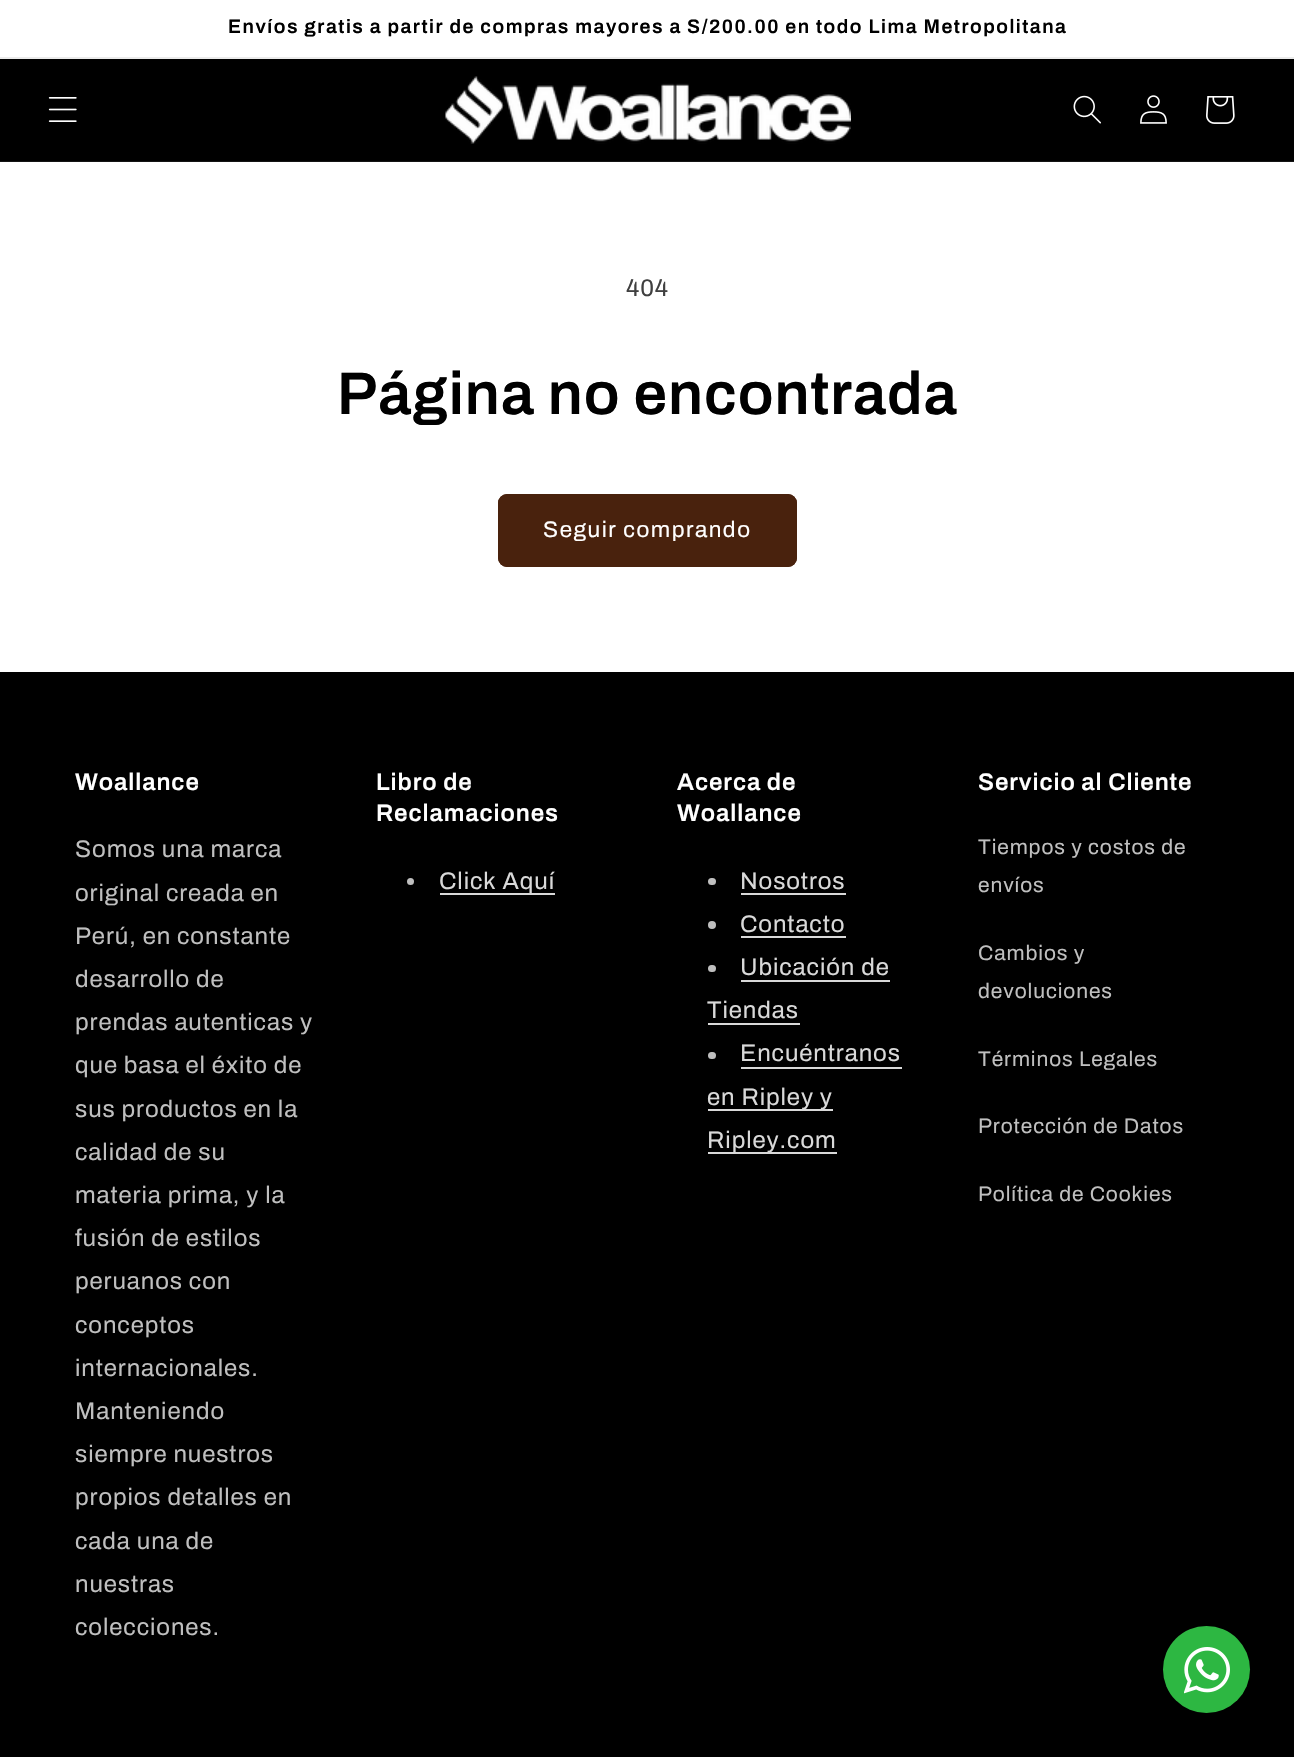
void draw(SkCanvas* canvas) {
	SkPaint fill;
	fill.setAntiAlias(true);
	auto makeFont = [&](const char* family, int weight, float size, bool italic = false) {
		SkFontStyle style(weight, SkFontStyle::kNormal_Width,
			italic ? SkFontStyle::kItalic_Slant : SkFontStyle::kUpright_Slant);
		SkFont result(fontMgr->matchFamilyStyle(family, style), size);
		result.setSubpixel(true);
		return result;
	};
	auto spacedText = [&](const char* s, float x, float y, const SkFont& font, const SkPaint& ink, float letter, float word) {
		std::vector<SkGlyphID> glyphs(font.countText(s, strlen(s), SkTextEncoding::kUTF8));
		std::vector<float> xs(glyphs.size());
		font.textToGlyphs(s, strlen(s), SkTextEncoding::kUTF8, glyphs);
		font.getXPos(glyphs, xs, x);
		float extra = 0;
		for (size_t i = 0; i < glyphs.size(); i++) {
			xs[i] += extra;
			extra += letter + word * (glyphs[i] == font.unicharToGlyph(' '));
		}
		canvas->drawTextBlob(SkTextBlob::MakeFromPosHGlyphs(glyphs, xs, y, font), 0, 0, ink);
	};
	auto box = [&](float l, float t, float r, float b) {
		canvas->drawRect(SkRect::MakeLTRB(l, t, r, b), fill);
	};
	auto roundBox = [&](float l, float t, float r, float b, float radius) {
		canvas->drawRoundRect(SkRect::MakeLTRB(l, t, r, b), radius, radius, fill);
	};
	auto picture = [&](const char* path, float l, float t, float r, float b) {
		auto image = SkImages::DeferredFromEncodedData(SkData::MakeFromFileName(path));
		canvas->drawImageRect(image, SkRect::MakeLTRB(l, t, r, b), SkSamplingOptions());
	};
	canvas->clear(0xFFFFFFFF);
	fill.setColor(0xFFEBEBEB);
	box(0, 57, 1294, 59);
	fill.setColor(0xFF000000);
	box(0, 59, 1294, 161);
	fill.setColor(0xFF141414);
	box(0, 161, 1294, 162);
	picture("image0.png", 48, 97, 77, 122);
	picture("image1.png", 445, 76, 851, 144);
	picture("image2.png", 1073, 95, 1101, 124);
	picture("image3.png", 1140, 95, 1167, 124);
	picture("image4.png", 1206, 96, 1235, 124);
	fill.setColor(0xFF49220D);
	roundBox(498, 494, 797, 567, 9);
	fill.setStyle(SkPaint::kStroke_Style);
	fill.setStrokeWidth(3);
	canvas->drawRoundRect(SkRect::MakeLTRB(499.5f, 495.5f, 795.5f, 565.5f), 7.5f, 7.5f, fill);
	fill.setStyle(SkPaint::kFill_Style);
	fill.setColor(0xFF000000);
	box(0, 672, 1294, 1757);
	fill.setColor(0xFFBFBFBF);
	canvas->drawCircle(410.5f, 881.5f, 3.5f, fill);
	fill.setColor(0xFFD9D9D9);
	box(440, 893, 555, 895);
	fill.setColor(0xFFBFBFBF);
	roundBox(708, 878, 716, 885, 3.5f);
	fill.setColor(0xFFD9D9D9);
	box(741, 893, 846, 895);
	fill.setColor(0xFFBFBFBF);
	canvas->drawCircle(712, 925, 4, fill);
	fill.setColor(0xFFD9D9D9);
	box(741, 936, 846, 938);
	fill.setColor(0xFFBFBFBF);
	roundBox(708, 965, 716, 972, 3.5f);
	fill.setColor(0xFFD9D9D9);
	box(741, 980, 890, 982);
	box(708, 1023, 800, 1025);
	fill.setColor(0xFFBFBFBF);
	roundBox(708, 1052, 716, 1059, 3.5f);
	fill.setColor(0xFFD9D9D9);
	box(741, 1067, 902, 1069);
	box(708, 1109, 833, 1111);
	box(708, 1152, 837, 1154);
	fill.setColor(0xFF2DB742);
	canvas->drawCircle(1206.5f, 1669.5f, 43.5f, fill);
	picture("image5.png", 1184, 1647, 1230, 1694);
	auto font1 = makeFont("Archivo", 600, 19.5f);
	fill.setColor(0xFF000000);
	spacedText("Envíos gratis a partir de compras mayores a S/200.00 en todo Lima Metropolitana", 228, 33, font1, fill, 1.5f, 0);
	auto font2 = makeFont("Archivo", 400, 24);
	fill.setColor(0xFF404040);
	spacedText("404", 626, 296, font2, fill, 0.9f, 0);
	auto font3 = makeFont("Archivo", 600, 60);
	fill.setColor(0xFF000000);
	spacedText("Página no encontrada", 337, 414, font3, fill, 0.9f, 0);
	auto font4 = makeFont("Archivo", 400, 22.5f);
	fill.setColor(0xFFFFFFFF);
	spacedText("Seguir comprando", 543, 537, font4, fill, 1.5f, 0);
	auto font5 = makeFont("Archivo", 600, 24);
	spacedText("Woallance", 75, 790, font5, fill, 0.9f, 0);
	fill.setColor(0xFFBFBFBF);
	spacedText("Somos una marca", 75, 857, font2, fill, 0.9f, 0);
	spacedText("original creada en", 75, 901, font2, fill, 0.9f, 0);
	spacedText("Perú, en constante", 75, 944, font2, fill, 0.9f, 0);
	spacedText("desarrollo de", 75, 987, font2, fill, 0.9f, 0);
	spacedText("prendas autenticas y", 75, 1030, font2, fill, 0.9f, 0);
	spacedText("que basa el éxito de", 75, 1073, font2, fill, 0.9f, 0);
	spacedText("sus productos en la", 75, 1117, font2, fill, 0.9f, 0);
	spacedText("calidad de su", 75, 1160, font2, fill, 0.9f, 0);
	spacedText("materia prima, y la", 75, 1203, font2, fill, 0.9f, 0);
	spacedText("fusión de estilos", 75, 1246, font2, fill, 0.9f, 0);
	spacedText("peruanos con", 75, 1289, font2, fill, 0.9f, 0);
	spacedText("conceptos", 75, 1333, font2, fill, 0.9f, 0);
	spacedText("internacionales.", 75, 1376, font2, fill, 0.9f, 0);
	spacedText("Manteniendo", 75, 1419, font2, fill, 0.9f, 0);
	spacedText("siempre nuestros", 75, 1462, font2, fill, 0.9f, 0);
	spacedText("propios detalles en", 75, 1505, font2, fill, 0.9f, 0);
	spacedText("cada una de", 75, 1549, font2, fill, 0.9f, 0);
	spacedText("nuestras", 75, 1592, font2, fill, 0.9f, 0);
	spacedText("colecciones.", 75, 1635, font2, fill, 0.9f, 0);
	fill.setColor(0xFFFFFFFF);
	spacedText("Libro de", 376, 790, font5, fill, 0.9f, 0);
	spacedText("Reclamaciones", 376, 821, font5, fill, 0.9f, 0);
	fill.setColor(0xFFD9D9D9);
	spacedText("Click Aquí", 439, 889, font2, fill, 0.9f, 0);
	fill.setColor(0xFFFFFFFF);
	spacedText("Acerca de", 677, 790, font5, fill, 0.9f, 0);
	spacedText("Woallance", 677, 821, font5, fill, 0.9f, 0);
	fill.setColor(0xFFD9D9D9);
	spacedText("Nosotros", 740, 889, font2, fill, 0.9f, 0);
	spacedText("Contacto", 740, 932, font2, fill, 0.9f, 0);
	spacedText("Ubicación de", 740, 975, font2, fill, 0.9f, 0);
	spacedText("Tiendas", 707, 1018, font2, fill, 0.9f, 0);
	spacedText("Encuéntranos", 740, 1061, font2, fill, 0.9f, 0);
	spacedText("en Ripley y", 707, 1105, font2, fill, 0.9f, 0);
	spacedText("Ripley.com", 707, 1148, font2, fill, 0.9f, 0);
	fill.setColor(0xFFFFFFFF);
	spacedText("Servicio al Cliente", 978, 790, font5, fill, 0.9f, 0);
	auto font6 = makeFont("Archivo", 400, 21);
	fill.setColor(0xFFBFBFBF);
	spacedText("Tiempos y costos de", 978, 854, font6, fill, 0.9f, 0);
	spacedText("envíos", 978, 892, font6, fill, 0.9f, 0);
	spacedText("Cambios y", 978, 960, font6, fill, 0.9f, 0);
	spacedText("devoluciones", 978, 998, font6, fill, 0.9f, 0);
	spacedText("Términos Legales", 978, 1066, font6, fill, 0.9f, 0);
	spacedText("Protección de Datos", 978, 1133, font6, fill, 0.9f, 0);
	spacedText("Política de Cookies", 978, 1201, font6, fill, 0.9f, 0);
}
